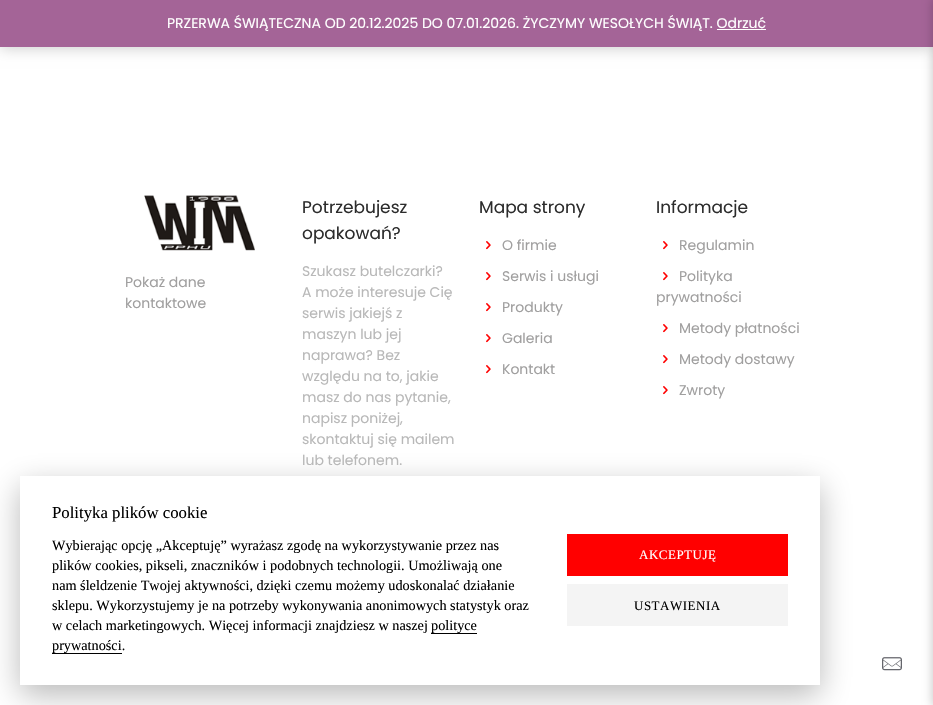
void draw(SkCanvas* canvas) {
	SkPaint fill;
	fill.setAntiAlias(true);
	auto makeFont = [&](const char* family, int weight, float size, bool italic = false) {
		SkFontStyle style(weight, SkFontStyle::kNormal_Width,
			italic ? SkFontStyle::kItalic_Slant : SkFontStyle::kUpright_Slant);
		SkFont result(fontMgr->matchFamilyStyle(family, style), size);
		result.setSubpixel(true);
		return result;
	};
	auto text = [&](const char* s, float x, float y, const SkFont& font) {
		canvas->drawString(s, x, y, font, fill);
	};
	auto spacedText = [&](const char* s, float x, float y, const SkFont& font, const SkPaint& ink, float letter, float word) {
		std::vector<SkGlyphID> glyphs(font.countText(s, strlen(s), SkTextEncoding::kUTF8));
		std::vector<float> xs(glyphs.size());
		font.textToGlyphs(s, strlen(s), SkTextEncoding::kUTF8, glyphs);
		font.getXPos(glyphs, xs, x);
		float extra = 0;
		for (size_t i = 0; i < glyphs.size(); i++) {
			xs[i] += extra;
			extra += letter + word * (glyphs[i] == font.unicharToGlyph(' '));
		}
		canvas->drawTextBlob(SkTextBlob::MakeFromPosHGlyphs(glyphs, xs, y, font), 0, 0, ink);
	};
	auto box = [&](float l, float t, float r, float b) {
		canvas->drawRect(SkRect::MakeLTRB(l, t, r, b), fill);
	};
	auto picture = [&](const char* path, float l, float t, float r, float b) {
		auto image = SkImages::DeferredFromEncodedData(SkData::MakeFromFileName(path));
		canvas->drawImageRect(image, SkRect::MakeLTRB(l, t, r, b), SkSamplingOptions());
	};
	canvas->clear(0xFFFFFFFF);
	fill.setColor(0x33000000);
	fill.setMaskFilter(SkMaskFilter::MakeBlur(kNormal_SkBlurStyle, 7));
	canvas->drawRect(SkRect::MakeLTRB(0, 1, 933, 48), fill);
	fill.setMaskFilter(nullptr);
	fill.setColor(0xFFA46497);
	box(0, 0, 933, 47);
	fill.setColor(0xFFFFFFFF);
	box(717, 29, 766, 30);
	fill.setColor(0x33000000);
	fill.setMaskFilter(SkMaskFilter::MakeBlur(kNormal_SkBlurStyle, 5));
	canvas->drawRect(SkRect::MakeLTRB(932, -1, 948, 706), fill);
	fill.setMaskFilter(nullptr);
	picture("image0.png", 144, 195, 255, 251);
	picture("image1.png", 486, 241, 491, 250);
	picture("image1.png", 486, 272, 491, 281);
	picture("image1.png", 486, 303, 491, 312);
	picture("image1.png", 486, 334, 491, 343);
	picture("image1.png", 486, 365, 491, 374);
	picture("image1.png", 663, 241, 668, 250);
	picture("image1.png", 663, 272, 668, 281);
	picture("image1.png", 663, 324, 668, 333);
	picture("image1.png", 663, 355, 668, 364);
	picture("image1.png", 663, 386, 668, 395);
	fill.setColor(0x47020203);
	fill.setMaskFilter(SkMaskFilter::MakeBlur(kNormal_SkBlurStyle, 15));
	canvas->drawRect(SkRect::MakeLTRB(20, 486, 820, 695), fill);
	fill.setMaskFilter(nullptr);
	fill.setColor(0xFFFFFFFF);
	box(20, 476, 820, 685);
	fill.setColor(0xFF000000);
	box(431, 633, 477, 634);
	box(52, 653, 122, 654);
	fill.setColor(0xFFFF0000);
	box(567, 534, 788, 576);
	fill.setColor(0xFFF4F4F4);
	box(567, 584, 788, 626);
	picture("image2.png", 882, 657, 902, 671);
	auto font1 = makeFont("Poppins", 400, 14);
	fill.setColor(0xFFFFFFFF);
	text("PRZERWA ŚWIĄTECZNA OD 20.12.2025 DO 07.01.2026. ŻYCZYMY WESOŁYCH ŚWIĄT. Odrzuć", 167, 28, font1);
	fill.setColor(0xFFA09F9F);
	text("Pokaż dane", 125, 287, font1);
	text("kontaktowe", 125, 308, font1);
	auto font2 = makeFont("Poppins", 400, 17);
	fill.setColor(0xFF2C2C2C);
	text("Potrzebujesz", 302, 213, font2);
	text("opakowań?", 302, 239, font2);
	fill.setColor(0xFFB8B8B8);
	text("Szukasz butelczarki?", 302, 276, font1);
	text("A może interesuje Cię", 302, 297, font1);
	text("serwis jakiejś z", 302, 318, font1);
	text("maszyn lub jej", 302, 339, font1);
	text("naprawa? Bez", 302, 360, font1);
	text("względu na to, jakie", 302, 381, font1);
	text("masz do nas pytanie,", 302, 402, font1);
	text("napisz poniżej,", 302, 423, font1);
	text("skontaktuj się mailem", 302, 444, font1);
	text("lub telefonem.", 302, 465, font1);
	fill.setColor(0xFF2C2C2C);
	text("Mapa strony", 479, 213, font2);
	fill.setColor(0xFFA09F9F);
	text("O firmie", 502, 250, font1);
	text("Serwis i usługi", 502, 281, font1);
	text("Produkty", 502, 312, font1);
	text("Galeria", 502, 343, font1);
	text("Kontakt", 502, 374, font1);
	fill.setColor(0xFF2C2C2C);
	text("Informacje", 656, 213, font2);
	fill.setColor(0xFFA09F9F);
	text("Regulamin", 679, 250, font1);
	text("Polityka", 679, 281, font1);
	text("prywatności", 656, 302, font1);
	text("Metody płatności", 679, 333, font1);
	text("Metody dostawy", 679, 364, font1);
	text("Zwroty", 679, 395, font1);
	auto font3 = makeFont("Liberation Serif", 400, 16.75f);
	fill.setColor(0xFF000000);
	text("Polityka plików cookie", 52, 518, font3);
	auto font4 = makeFont("Liberation Serif", 400, 14.25f);
	text("Wybierając opcję „Akceptuję” wyrażasz zgodę na wykorzystywanie przez nas", 52, 550, font4);
	text("plików cookies, pikseli, znaczników i podobnych technologii. Umożliwają one", 52, 570, font4);
	text("nam śleldzenie Twojej aktywności, dzięki czemu możemy udoskonalać działanie", 52, 590, font4);
	text("sklepu. Wykorzystujemy je na potrzeby wykonywania anonimowych statystyk oraz", 52, 610, font4);
	text("w celach marketingowych. Więcej informacji znajdziesz w naszej", 52, 630, font4);
	text("polityce", 431, 630, font4);
	text("prywatności.", 52, 650, font4);
	auto font5 = makeFont("Liberation Serif", 400, 13);
	fill.setColor(0xFFFFFFFF);
	spacedText("AKCEPTUJĘ", 639, 559, font5, fill, 0.5f, 0);
	fill.setColor(0xFF000000);
	spacedText("USTAWIENIA", 634, 610, font5, fill, 0.5f, 0);
}
